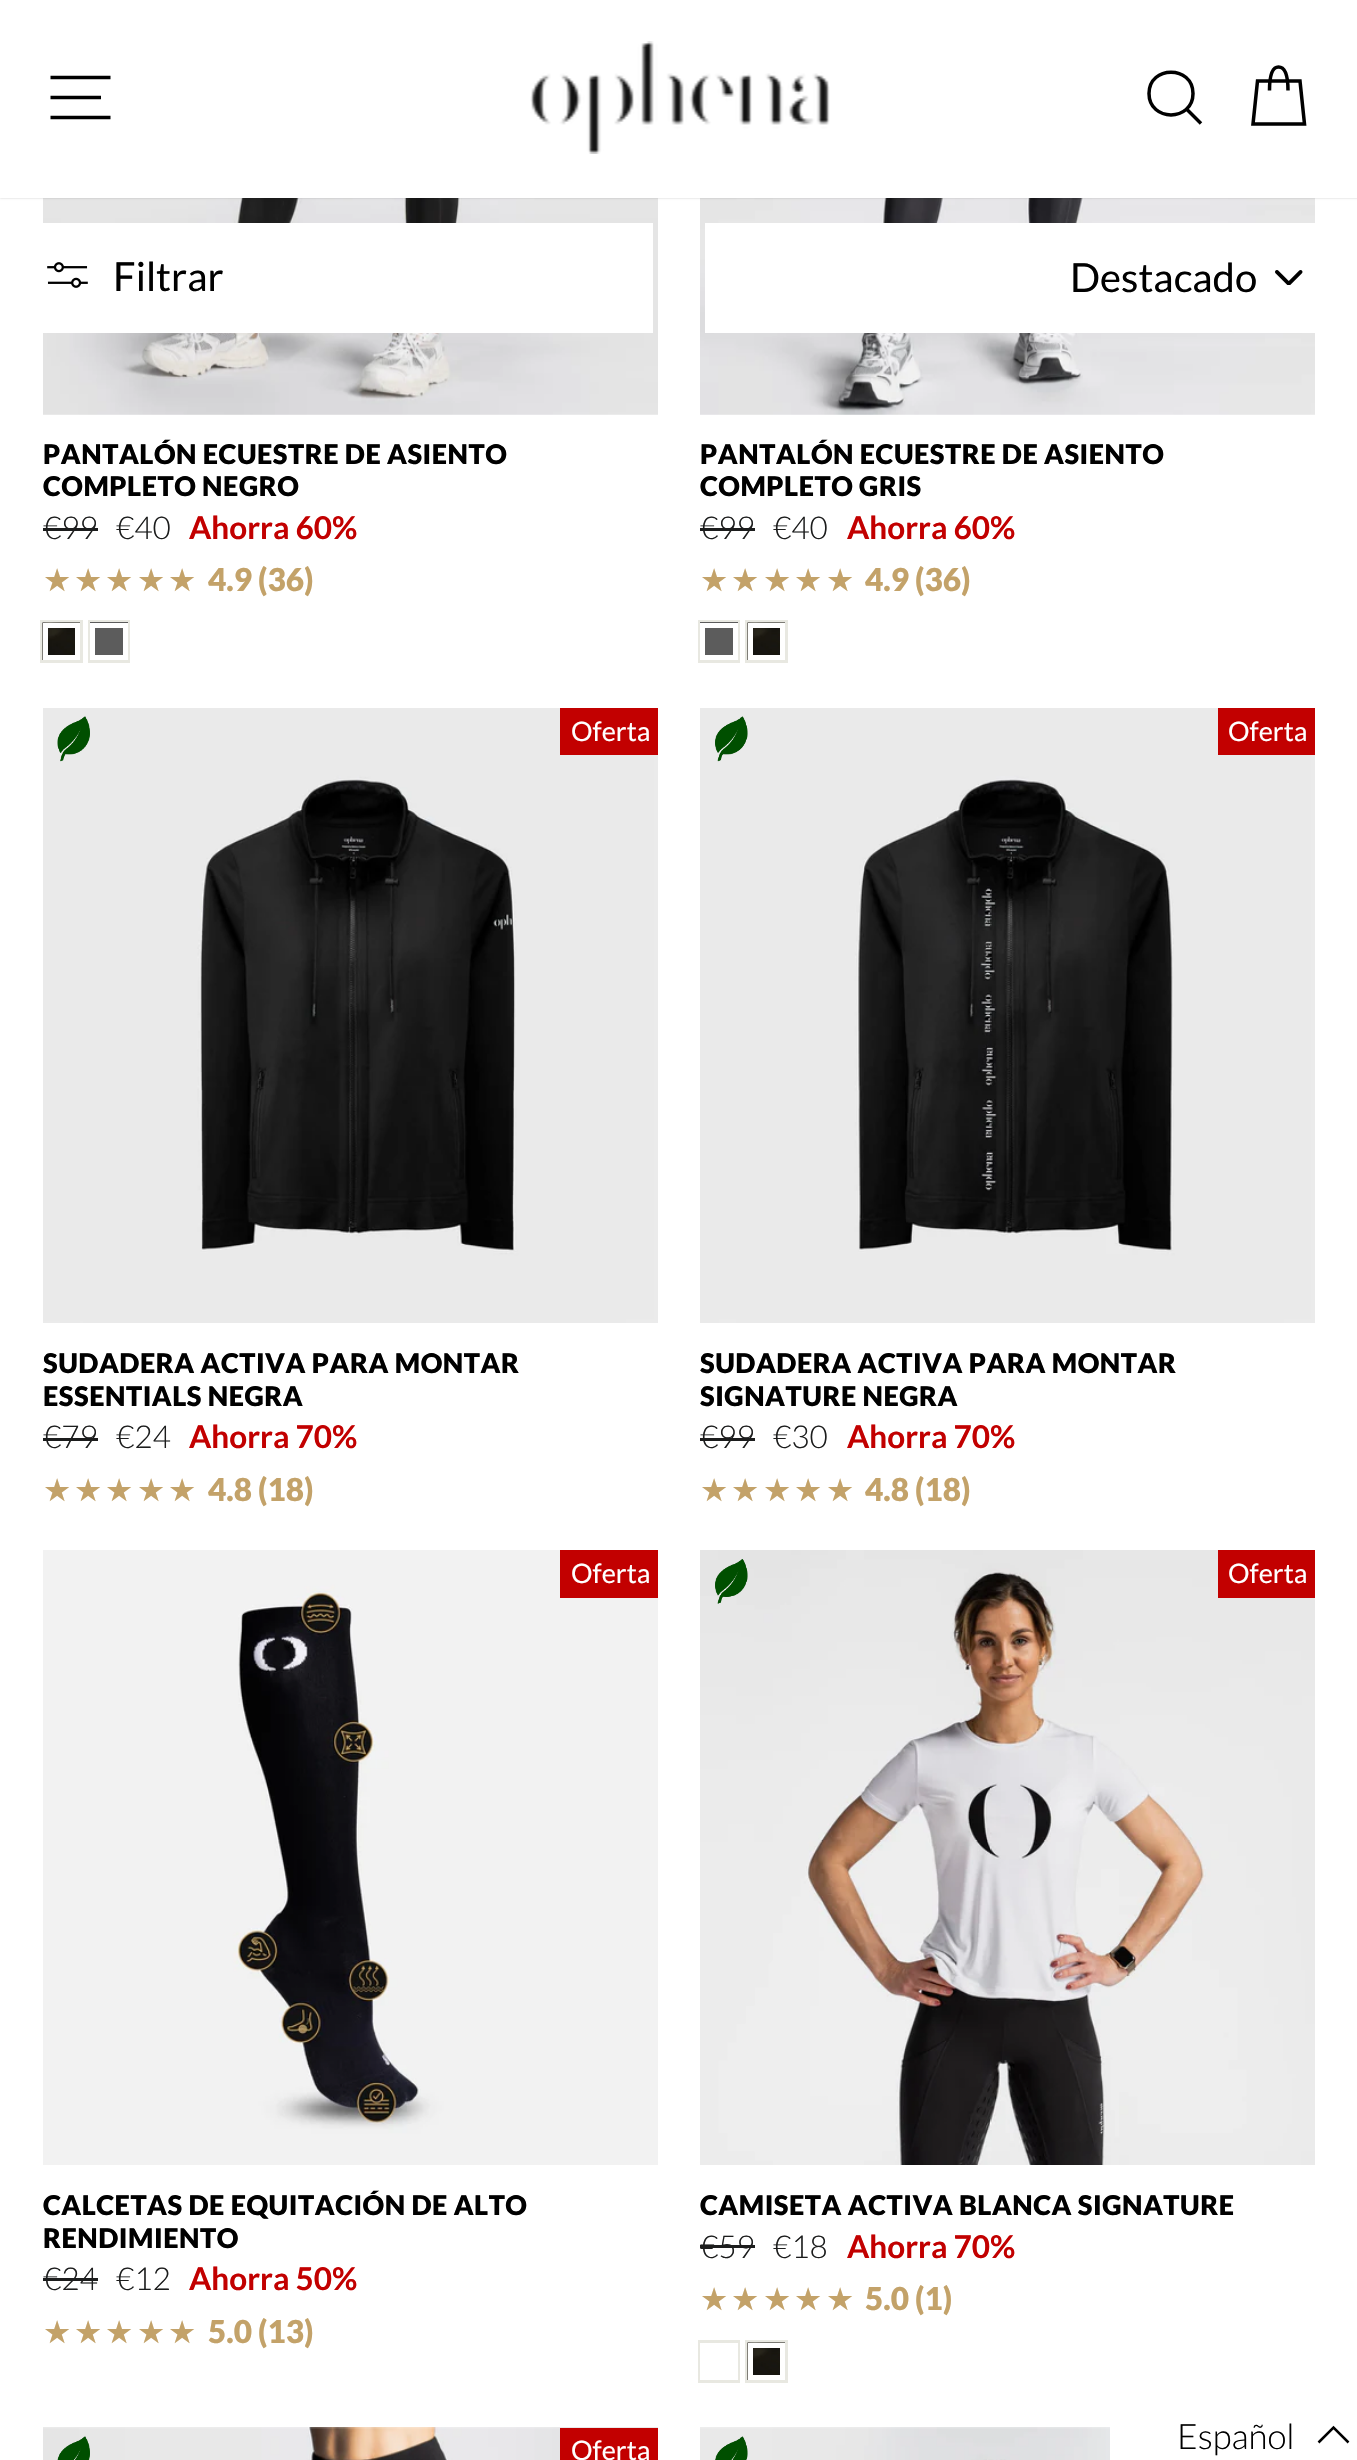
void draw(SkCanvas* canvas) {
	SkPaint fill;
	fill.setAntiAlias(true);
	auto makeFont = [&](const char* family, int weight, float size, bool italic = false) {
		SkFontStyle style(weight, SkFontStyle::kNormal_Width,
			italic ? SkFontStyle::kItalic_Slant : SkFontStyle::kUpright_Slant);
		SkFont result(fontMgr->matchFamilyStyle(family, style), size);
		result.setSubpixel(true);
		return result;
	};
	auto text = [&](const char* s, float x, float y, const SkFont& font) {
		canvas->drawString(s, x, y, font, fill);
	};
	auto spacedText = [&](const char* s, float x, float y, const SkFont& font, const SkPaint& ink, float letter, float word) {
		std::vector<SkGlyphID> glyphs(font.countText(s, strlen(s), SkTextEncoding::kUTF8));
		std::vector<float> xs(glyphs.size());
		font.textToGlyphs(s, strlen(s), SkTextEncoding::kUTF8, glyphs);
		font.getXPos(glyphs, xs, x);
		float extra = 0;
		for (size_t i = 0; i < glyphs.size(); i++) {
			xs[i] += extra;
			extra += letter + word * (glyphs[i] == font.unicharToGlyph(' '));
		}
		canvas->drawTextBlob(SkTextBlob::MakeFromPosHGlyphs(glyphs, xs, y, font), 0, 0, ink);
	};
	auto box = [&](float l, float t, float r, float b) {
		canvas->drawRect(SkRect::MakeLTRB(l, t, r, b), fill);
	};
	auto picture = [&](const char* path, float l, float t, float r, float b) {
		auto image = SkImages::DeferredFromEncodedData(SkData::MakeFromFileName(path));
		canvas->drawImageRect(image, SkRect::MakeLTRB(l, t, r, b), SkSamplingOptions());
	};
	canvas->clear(0xFFFFFFFF);
	picture("image3.png", 43, 198, 658, 415);
	picture("image5.png", 700, 198, 1315, 415);
	fill.setColor(0x33000000);
	fill.setMaskFilter(SkMaskFilter::MakeBlur(kNormal_SkBlurStyle, 1));
	canvas->drawRect(SkRect::MakeLTRB(0, 0, 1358, 198), fill);
	fill.setMaskFilter(nullptr);
	fill.setColor(0xFFFFFFFF);
	box(0, 0, 1357, 198);
	fill.setStyle(SkPaint::kStroke_Style);
	fill.setStrokeWidth(3.5f);
	fill.setColor(0xFF000000);
	canvas->drawPath(SkPathBuilder().moveTo(50.5f, 77.5f).lineTo(110.5f, 77.5f).moveTo(50.5f, 97.5f).lineTo(101, 97.5f).moveTo(50.5f, 117.5f).lineTo(110.5f, 117.5f).detach(), fill);
	picture("image0.png", 530, 41, 830, 154);
	canvas->drawPath(SkPathBuilder().moveTo(1193, 93.5f).cubicTo(1193, 122, 1149, 122, 1149, 93.5f).cubicTo(1149, 65, 1193, 65, 1193, 93.5f).close().moveTo(1201, 123.5f).lineTo(1186.5f, 109).detach(), fill);
	canvas->drawPath(SkPathBuilder().moveTo(1269.5f, 90.5f).cubicTo(1269.5f, 72, 1273.5f, 67, 1278.5f, 67).cubicTo(1284, 67, 1288, 72, 1288, 90.5f).moveTo(1257.5f, 81).lineTo(1300, 81).lineTo(1304.5f, 124).lineTo(1253, 124).close().detach(), fill);
	fill.setStyle(SkPaint::kFill_Style);
	fill.setColor(0xFFFFFFFF);
	box(43, 223, 653, 333);
	picture("image1.png", 47, 262, 88, 288);
	box(705, 223, 1315, 333);
	picture("image2.png", 1275, 270, 1303, 285);
	fill.setColor(0xFF1C1D1D);
	box(43, 528, 98, 531);
	fill.setStyle(SkPaint::kStroke_Style);
	fill.setStrokeWidth(3);
	fill.setColor(0xFFE8E8E1);
	canvas->drawRect(SkRect::MakeLTRB(41.5f, 621.5f, 81.5f, 661.5f), fill);
	picture("image4.png", 42, 622, 80, 660);
	fill.setStrokeWidth(5);
	fill.setColor(0xFFFFFFFF);
	canvas->drawRect(SkRect::MakeLTRB(45.5f, 625.5f, 77.5f, 657.5f), fill);
	fill.setStrokeWidth(3);
	fill.setColor(0xFFE8E8E1);
	canvas->drawRect(SkRect::MakeLTRB(89.5f, 621.5f, 128.5f, 661.5f), fill);
	fill.setStyle(SkPaint::kFill_Style);
	fill.setColor(0xFF5C5C5C);
	box(90, 622, 128, 655);
	fill.setStyle(SkPaint::kStroke_Style);
	fill.setStrokeWidth(5);
	fill.setColor(0xFFFFFFFF);
	canvas->drawRect(SkRect::MakeLTRB(92.5f, 625.5f, 125.5f, 657.5f), fill);
	fill.setStyle(SkPaint::kFill_Style);
	fill.setColor(0xFF1C1D1D);
	box(700, 528, 755, 531);
	fill.setStyle(SkPaint::kStroke_Style);
	fill.setStrokeWidth(3);
	fill.setColor(0xFFE8E8E1);
	canvas->drawRect(SkRect::MakeLTRB(699.5f, 621.5f, 738.5f, 661.5f), fill);
	fill.setStyle(SkPaint::kFill_Style);
	fill.setColor(0xFF5C5C5C);
	box(700, 622, 738, 655);
	fill.setStyle(SkPaint::kStroke_Style);
	fill.setStrokeWidth(5);
	fill.setColor(0xFFFFFFFF);
	canvas->drawRect(SkRect::MakeLTRB(702.5f, 625.5f, 735.5f, 657.5f), fill);
	fill.setStrokeWidth(3);
	fill.setColor(0xFFE8E8E1);
	canvas->drawRect(SkRect::MakeLTRB(746.5f, 621.5f, 786.5f, 661.5f), fill);
	picture("image6.png", 747, 622, 785, 660);
	fill.setStrokeWidth(5);
	fill.setColor(0xFFFFFFFF);
	canvas->drawRect(SkRect::MakeLTRB(750.5f, 625.5f, 782.5f, 657.5f), fill);
	picture("image7.png", 43, 708, 658, 1323);
	fill.setStyle(SkPaint::kFill_Style);
	fill.setColor(0xFFC20000);
	box(560, 708, 658, 755);
	picture("image8.png", 57, 716, 90, 762);
	picture("image9.png", 57, 716, 90, 762);
	fill.setColor(0xFF1C1D1D);
	box(43, 1438, 98, 1441);
	picture("image10.png", 700, 708, 1315, 1323);
	fill.setColor(0xFFC20000);
	box(1218, 708, 1315, 755);
	picture("image11.png", 715, 716, 748, 762);
	picture("image12.png", 715, 716, 748, 762);
	fill.setColor(0xFF1C1D1D);
	box(700, 1438, 755, 1441);
	picture("image13.png", 43, 1550, 658, 2165);
	fill.setColor(0xFFC20000);
	box(560, 1550, 658, 1598);
	fill.setColor(0xFF1C1D1D);
	box(43, 2278, 98, 2281);
	picture("image14.png", 700, 1550, 1315, 2165);
	fill.setColor(0xFFC20000);
	box(1218, 1550, 1315, 1598);
	picture("image15.png", 715, 1559, 748, 1604);
	picture("image16.png", 715, 1559, 748, 1604);
	fill.setColor(0xFF1C1D1D);
	box(700, 2245, 755, 2248);
	fill.setStyle(SkPaint::kStroke_Style);
	fill.setStrokeWidth(3);
	fill.setColor(0xFFE8E8E1);
	canvas->drawRect(SkRect::MakeLTRB(699.5f, 2341.5f, 738.5f, 2381.5f), fill);
	fill.setStrokeWidth(5);
	fill.setColor(0xFFFFFFFF);
	canvas->drawRect(SkRect::MakeLTRB(702.5f, 2345.5f, 735.5f, 2377.5f), fill);
	fill.setStrokeWidth(3);
	fill.setColor(0xFFE8E8E1);
	canvas->drawRect(SkRect::MakeLTRB(746.5f, 2341.5f, 786.5f, 2381.5f), fill);
	picture("image6.png", 747, 2342, 785, 2380);
	fill.setStrokeWidth(5);
	fill.setColor(0xFFFFFFFF);
	canvas->drawRect(SkRect::MakeLTRB(750.5f, 2345.5f, 782.5f, 2377.5f), fill);
	picture("image17.png", 43, 2427, 658, 2460);
	picture("image18.png", 57, 2436, 90, 2460);
	picture("image19.png", 57, 2436, 90, 2460);
	fill.setStyle(SkPaint::kFill_Style);
	fill.setColor(0xFFC20000);
	box(560, 2428, 658, 2460);
	picture("image20.png", 700, 2427, 1110, 2460);
	picture("image21.png", 715, 2436, 748, 2460);
	picture("image22.png", 715, 2436, 748, 2460);
	fill.setStyle(SkPaint::kStroke_Style);
	fill.setStrokeWidth(2.5f);
	fill.setColor(0xFF000000);
	canvas->drawPath(SkPathBuilder().moveTo(1348.5f, 2442.5f).lineTo(1333.5f, 2427.5f).lineTo(1318.5f, 2442.5f).detach(), fill);
	auto font1 = makeFont("Lato", 400, 40);
	fill.setStyle(SkPaint::kFill_Style);
	text("Filtrar", 113, 291, font1);
	text("Destacado", 1070, 292, font1);
	auto font2 = makeFont("Lato", 900, 27);
	spacedText("PANTALÓN ECUESTRE DE ASIENTO", 43, 464, font2, fill, 0.55f, 0);
	spacedText("COMPLETO NEGRO", 43, 496, font2, fill, 0.55f, 0);
	auto font3 = makeFont("Lato", 300, 31.5f);
	fill.setColor(0xFF1C1D1D);
	text("€99", 43, 539, font3);
	text("€40", 116, 539, font3);
	auto font4 = makeFont("Lato", 700, 31.5f);
	fill.setColor(0xFFC20000);
	text("Ahorra 60%", 189, 539, font4);
	auto font5 = makeFont("DejaVu Sans", 400, 31.5f);
	fill.setColor(0xFFC3A269);
	text("★", 43, 591, font5);
	text("★", 74, 591, font5);
	text("★", 105, 591, font5);
	text("★", 137, 591, font5);
	text("★", 168, 591, font5);
	auto font6 = makeFont("Lato", 900, 31.5f);
	text("4.9 (36)", 208, 591, font6);
	fill.setColor(0xFF000000);
	spacedText("PANTALÓN ECUESTRE DE ASIENTO", 700, 464, font2, fill, 0.55f, 0);
	spacedText("COMPLETO GRIS", 700, 496, font2, fill, 0.55f, 0);
	fill.setColor(0xFF1C1D1D);
	text("€99", 700, 539, font3);
	text("€40", 773, 539, font3);
	fill.setColor(0xFFC20000);
	text("Ahorra 60%", 847, 539, font4);
	fill.setColor(0xFFC3A269);
	text("★", 700, 591, font5);
	text("★", 731, 591, font5);
	text("★", 763, 591, font5);
	text("★", 794, 591, font5);
	text("★", 826, 591, font5);
	text("4.9 (36)", 865, 591, font6);
	auto font7 = makeFont("Lato", 400, 27);
	fill.setColor(0xFFFFFFFF);
	text("Oferta", 571, 741, font7);
	fill.setColor(0xFF000000);
	spacedText("SUDADERA ACTIVA PARA MONTAR", 43, 1373, font2, fill, 0.55f, 0);
	spacedText("ESSENTIALS NEGRA", 43, 1406, font2, fill, 0.55f, 0);
	fill.setColor(0xFF1C1D1D);
	text("€79", 43, 1448, font3);
	text("€24", 116, 1448, font3);
	fill.setColor(0xFFC20000);
	text("Ahorra 70%", 189, 1448, font4);
	fill.setColor(0xFFC3A269);
	text("★", 43, 1501, font5);
	text("★", 74, 1501, font5);
	text("★", 105, 1501, font5);
	text("★", 137, 1501, font5);
	text("★", 168, 1501, font5);
	text("4.8 (18)", 208, 1501, font6);
	fill.setColor(0xFFFFFFFF);
	text("Oferta", 1228, 741, font7);
	fill.setColor(0xFF000000);
	spacedText("SUDADERA ACTIVA PARA MONTAR", 700, 1373, font2, fill, 0.55f, 0);
	spacedText("SIGNATURE NEGRA", 700, 1406, font2, fill, 0.55f, 0);
	fill.setColor(0xFF1C1D1D);
	text("€99", 700, 1448, font3);
	text("€30", 773, 1448, font3);
	fill.setColor(0xFFC20000);
	text("Ahorra 70%", 847, 1448, font4);
	fill.setColor(0xFFC3A269);
	text("★", 700, 1501, font5);
	text("★", 731, 1501, font5);
	text("★", 763, 1501, font5);
	text("★", 794, 1501, font5);
	text("★", 826, 1501, font5);
	text("4.8 (18)", 865, 1501, font6);
	fill.setColor(0xFFFFFFFF);
	text("Oferta", 571, 1583, font7);
	fill.setColor(0xFF000000);
	spacedText("CALCETAS DE EQUITACIÓN DE ALTO", 43, 2215, font2, fill, 0.55f, 0);
	spacedText("RENDIMIENTO", 43, 2248, font2, fill, 0.55f, 0);
	fill.setColor(0xFF1C1D1D);
	text("€24", 43, 2290, font3);
	text("€12", 116, 2290, font3);
	fill.setColor(0xFFC20000);
	text("Ahorra 50%", 189, 2290, font4);
	fill.setColor(0xFFC3A269);
	text("★", 43, 2343, font5);
	text("★", 74, 2343, font5);
	text("★", 105, 2343, font5);
	text("★", 137, 2343, font5);
	text("★", 168, 2343, font5);
	text("5.0 (13)", 208, 2343, font6);
	fill.setColor(0xFFFFFFFF);
	text("Oferta", 1228, 1583, font7);
	fill.setColor(0xFF000000);
	spacedText("CAMISETA ACTIVA BLANCA SIGNATURE", 700, 2215, font2, fill, 0.55f, 0);
	fill.setColor(0xFF1C1D1D);
	text("€59", 700, 2258, font3);
	text("€18", 773, 2258, font3);
	fill.setColor(0xFFC20000);
	text("Ahorra 70%", 847, 2258, font4);
	fill.setColor(0xFFC3A269);
	text("★", 700, 2310, font5);
	text("★", 731, 2310, font5);
	text("★", 763, 2310, font5);
	text("★", 794, 2310, font5);
	text("★", 826, 2310, font5);
	text("5.0 (1)", 865, 2310, font6);
	fill.setColor(0xFFFFFFFF);
	text("Oferta", 571, 2460, font7);
	auto font8 = makeFont("Lato", 300, 35);
	fill.setColor(0xFF000000);
	text("Español", 1177, 2449, font8);
}
